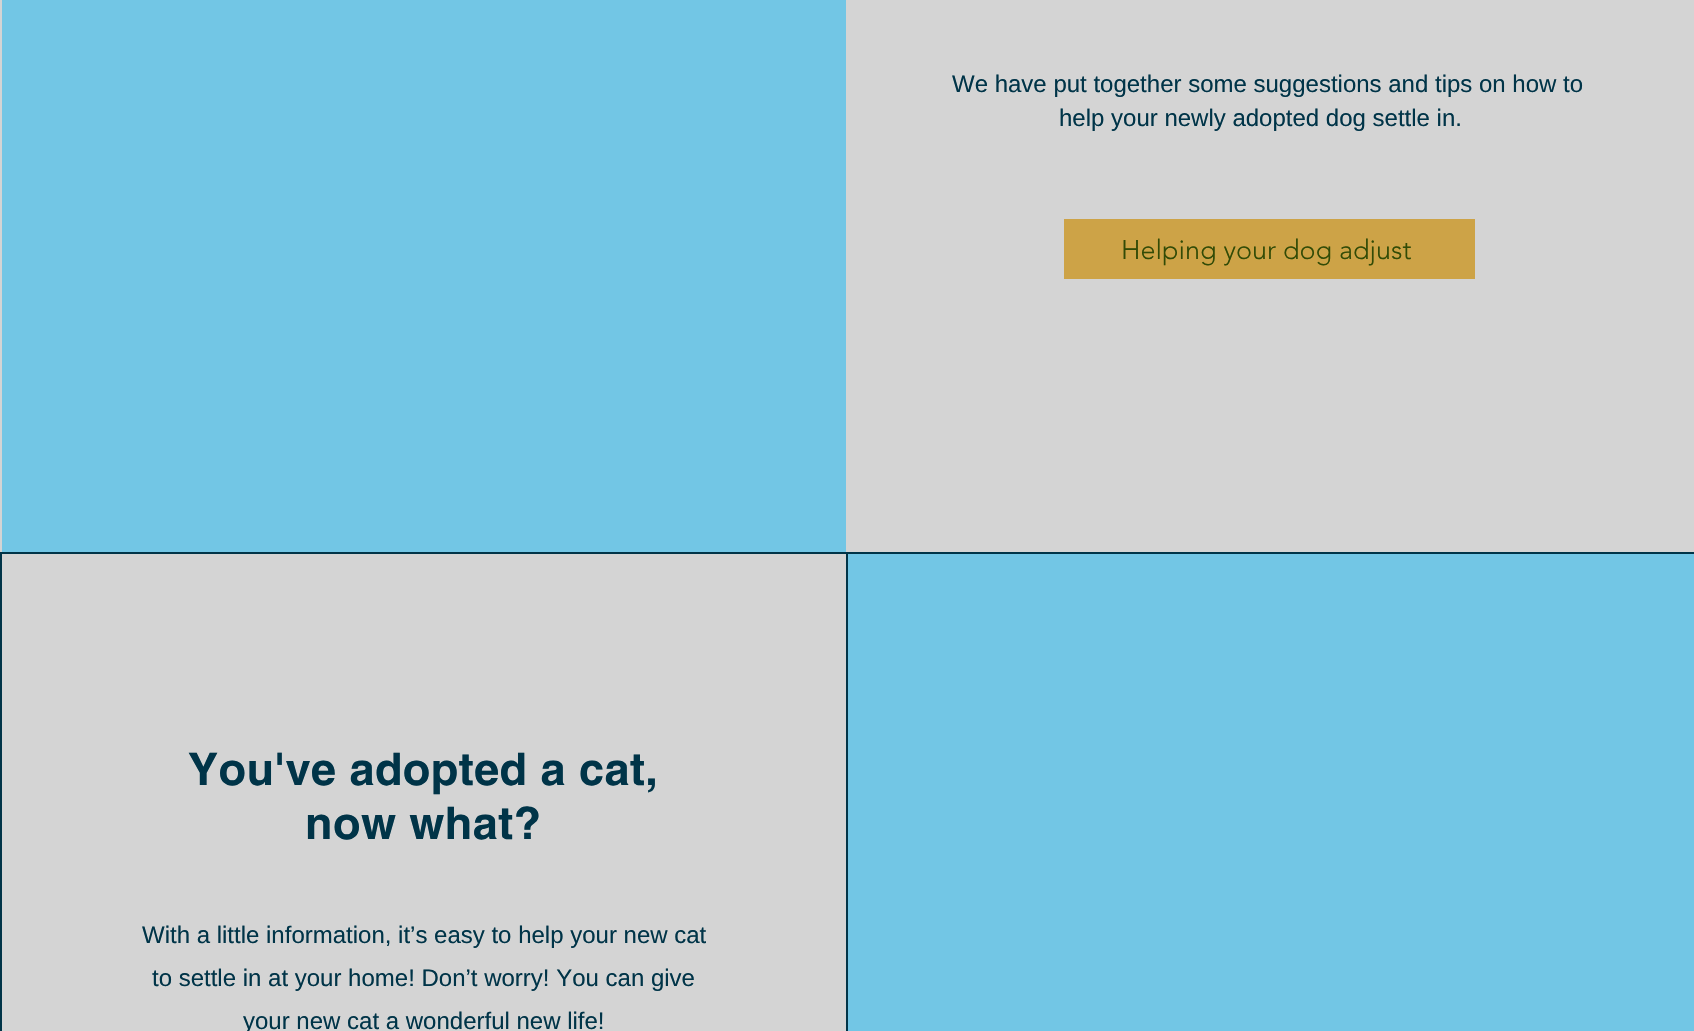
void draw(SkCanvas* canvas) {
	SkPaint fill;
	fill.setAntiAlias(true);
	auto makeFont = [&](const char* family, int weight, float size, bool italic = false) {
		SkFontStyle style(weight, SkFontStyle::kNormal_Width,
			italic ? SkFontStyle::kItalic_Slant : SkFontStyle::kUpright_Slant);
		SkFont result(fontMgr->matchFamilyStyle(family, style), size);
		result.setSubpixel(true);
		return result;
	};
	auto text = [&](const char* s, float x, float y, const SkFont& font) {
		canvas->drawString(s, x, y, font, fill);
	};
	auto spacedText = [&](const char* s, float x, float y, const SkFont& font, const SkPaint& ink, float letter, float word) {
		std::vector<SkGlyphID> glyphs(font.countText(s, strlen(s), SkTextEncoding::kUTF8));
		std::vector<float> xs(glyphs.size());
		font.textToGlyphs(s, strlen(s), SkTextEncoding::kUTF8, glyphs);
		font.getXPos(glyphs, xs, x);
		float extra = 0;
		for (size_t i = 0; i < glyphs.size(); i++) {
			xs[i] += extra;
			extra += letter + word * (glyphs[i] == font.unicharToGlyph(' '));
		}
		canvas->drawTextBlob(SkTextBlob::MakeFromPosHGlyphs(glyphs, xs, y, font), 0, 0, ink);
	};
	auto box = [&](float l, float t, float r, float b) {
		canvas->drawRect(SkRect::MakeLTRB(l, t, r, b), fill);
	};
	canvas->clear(0xFFD4D4D4);
	fill.setColor(0xFF72C6E5);
	box(2, 0, 846, 552);
	fill.setColor(0xFFCDA347);
	box(1064, 219, 1475, 279);
	fill.setColor(0xFF003448);
	box(0, 552, 1694, 1031);
	fill.setColor(0xFFD4D4D4);
	box(2, 554, 846, 1031);
	fill.setColor(0xFF72C6E5);
	box(848, 554, 1694, 1031);
	auto font1 = makeFont("Liberation Sans", 400, 24);
	fill.setColor(0xFF003448);
	text("We have put together some suggestions and tips on how to", 952, 92, font1);
	text("help your newly adopted dog settle in.", 1059, 126, font1);
	auto font2 = makeFont("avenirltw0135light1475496", 300, 27);
	fill.setColor(0xFF324B06);
	text("Helping your dog adjust", 1121, 259, font2);
	auto font3 = makeFont("helvetica", 700, 45);
	fill.setColor(0xFF003448);
	spacedText("You've adopted a cat,", 188, 785, font3, fill, 0.45f, 0);
	spacedText("now what?", 305, 839, font3, fill, 0.45f, 0);
	text("With a little information, it’s easy to help your new cat", 142, 943, font1);
	text("to settle in at your home! Don’t worry! You can give", 152, 986, font1);
	text("your new cat a wonderful new life!", 243, 1029, font1);
}
